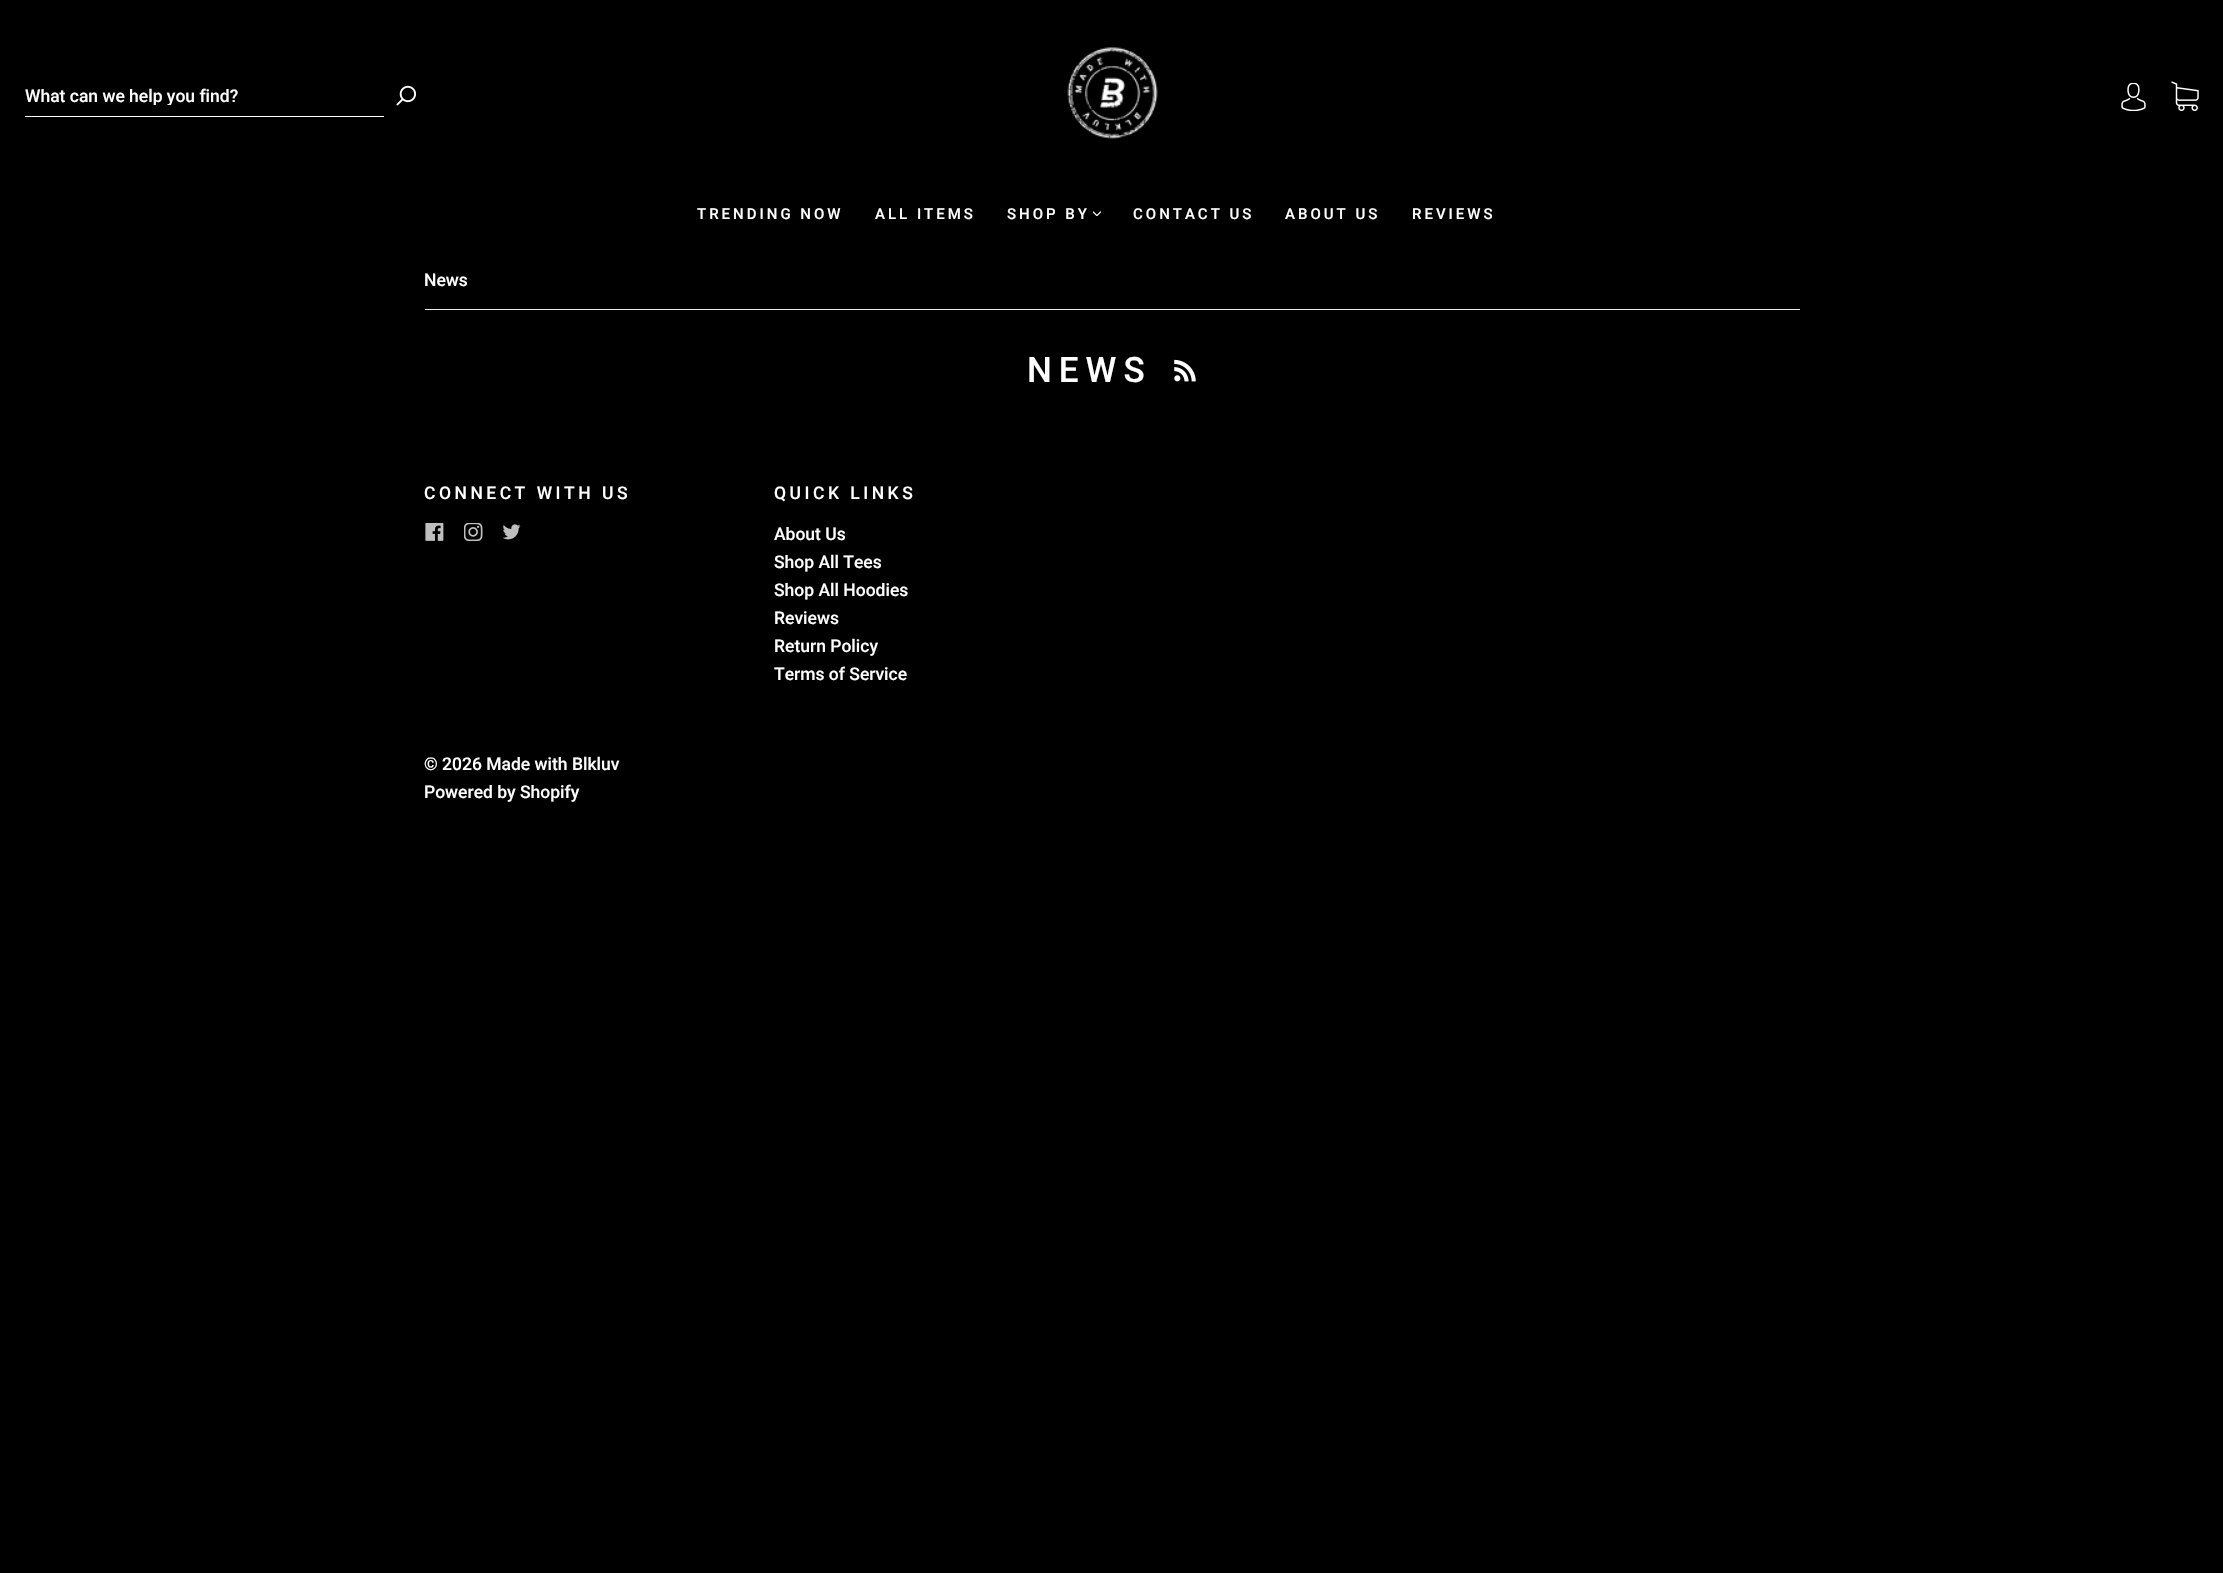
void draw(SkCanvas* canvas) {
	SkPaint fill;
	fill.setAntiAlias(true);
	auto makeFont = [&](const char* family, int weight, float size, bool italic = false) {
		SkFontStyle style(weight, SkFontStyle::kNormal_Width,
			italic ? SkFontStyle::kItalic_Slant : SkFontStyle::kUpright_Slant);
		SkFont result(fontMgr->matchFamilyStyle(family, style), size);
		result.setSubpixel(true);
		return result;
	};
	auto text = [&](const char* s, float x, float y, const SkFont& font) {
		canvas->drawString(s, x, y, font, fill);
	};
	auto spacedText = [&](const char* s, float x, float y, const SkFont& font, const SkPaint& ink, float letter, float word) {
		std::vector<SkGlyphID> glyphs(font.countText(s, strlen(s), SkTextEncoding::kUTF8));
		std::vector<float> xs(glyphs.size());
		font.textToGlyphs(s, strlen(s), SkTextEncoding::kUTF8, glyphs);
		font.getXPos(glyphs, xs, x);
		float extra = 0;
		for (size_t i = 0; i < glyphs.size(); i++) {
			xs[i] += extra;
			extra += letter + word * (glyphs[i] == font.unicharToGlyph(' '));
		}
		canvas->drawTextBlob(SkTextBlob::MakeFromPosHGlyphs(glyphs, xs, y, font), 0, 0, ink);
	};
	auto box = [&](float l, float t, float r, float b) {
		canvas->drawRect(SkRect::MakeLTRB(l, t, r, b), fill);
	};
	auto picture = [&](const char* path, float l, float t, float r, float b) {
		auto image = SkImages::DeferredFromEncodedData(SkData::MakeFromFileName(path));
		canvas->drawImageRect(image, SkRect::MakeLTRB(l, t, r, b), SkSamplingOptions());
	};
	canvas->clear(0xFF000000);
	fill.setColor(0xFFFFFFFF);
	box(25, 116, 384, 117);
	picture("image0.png", 396, 85, 416, 106);
	picture("image1.png", 1067, 47, 1158, 139);
	picture("image2.png", 2121, 83, 2146, 111);
	picture("image3.png", 2171, 81, 2199, 111);
	picture("image4.png", 1093, 211, 1101, 216);
	fill.setColor(0xFFEBEBEB);
	box(425, 309, 1800, 310);
	picture("image5.png", 1174, 359, 1196, 382);
	picture("image6.png", 425, 523, 444, 541);
	picture("image7.png", 464, 523, 483, 541);
	picture("image8.png", 503, 524, 521, 540);
	canvas->save();
	canvas->clipRect(SkRect::MakeLTRB(25, 85, 384, 105));
	auto font1 = makeFont("Roboto", 500, 17.5f);
	fill.setColor(0xFFFFFFFF);
	text("What can we help you find?", 25, 102, font1);
	canvas->restore();
	auto font2 = makeFont("Roboto", 500, 15);
	spacedText("TRENDING NOW", 697, 219, font2, fill, 3, 0);
	spacedText("ALL ITEMS", 875, 219, font2, fill, 3, 0);
	spacedText("SHOP BY", 1007, 219, font2, fill, 3, 0);
	spacedText("CONTACT US", 1133, 219, font2, fill, 3, 0);
	spacedText("ABOUT US", 1285, 219, font2, fill, 3, 0);
	spacedText("REVIEWS", 1412, 219, font2, fill, 3, 0);
	text("News", 424, 286, font1);
	auto font3 = makeFont("Roboto", 500, 35);
	spacedText("NEWS", 1027, 382, font3, fill, 7, 0);
	spacedText("CONNECT WITH US", 424, 499, font1, fill, 3.5f, 0);
	spacedText("QUICK LINKS", 774, 499, font1, fill, 3.5f, 0);
	text("About Us", 774, 540, font1);
	text("Shop All Tees", 774, 568, font1);
	text("Shop All Hoodies", 774, 596, font1);
	text("Reviews", 774, 624, font1);
	text("Return Policy", 774, 652, font1);
	text("Terms of Service", 774, 680, font1);
	text("© 2026 Made with Blkluv", 424, 770, font1);
	text("Powered by Shopify", 424, 798, font1);
}
